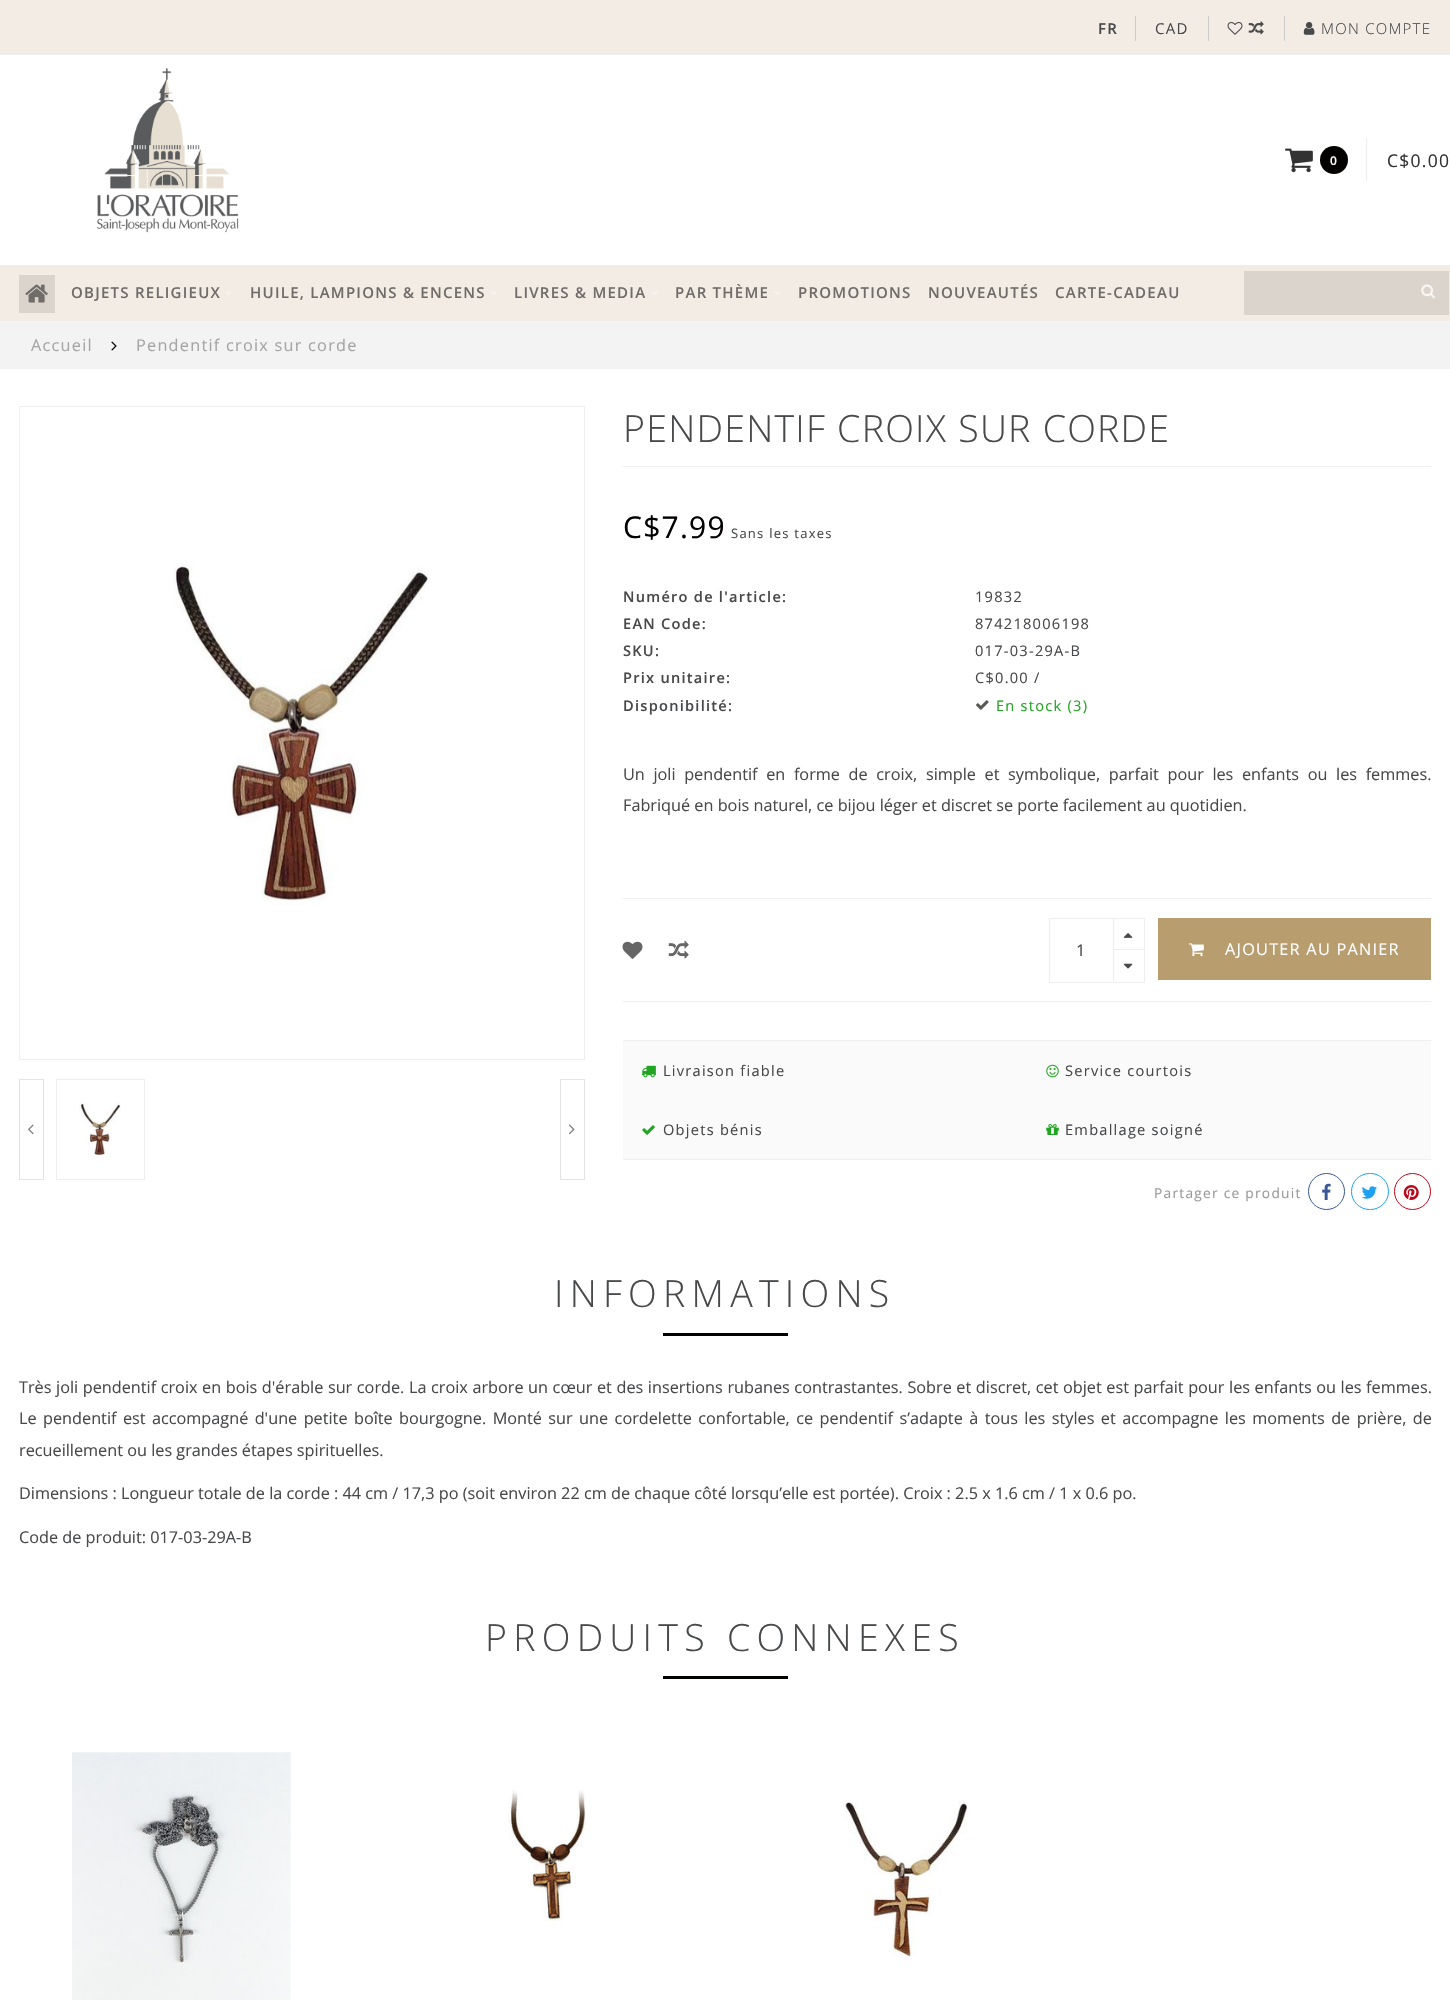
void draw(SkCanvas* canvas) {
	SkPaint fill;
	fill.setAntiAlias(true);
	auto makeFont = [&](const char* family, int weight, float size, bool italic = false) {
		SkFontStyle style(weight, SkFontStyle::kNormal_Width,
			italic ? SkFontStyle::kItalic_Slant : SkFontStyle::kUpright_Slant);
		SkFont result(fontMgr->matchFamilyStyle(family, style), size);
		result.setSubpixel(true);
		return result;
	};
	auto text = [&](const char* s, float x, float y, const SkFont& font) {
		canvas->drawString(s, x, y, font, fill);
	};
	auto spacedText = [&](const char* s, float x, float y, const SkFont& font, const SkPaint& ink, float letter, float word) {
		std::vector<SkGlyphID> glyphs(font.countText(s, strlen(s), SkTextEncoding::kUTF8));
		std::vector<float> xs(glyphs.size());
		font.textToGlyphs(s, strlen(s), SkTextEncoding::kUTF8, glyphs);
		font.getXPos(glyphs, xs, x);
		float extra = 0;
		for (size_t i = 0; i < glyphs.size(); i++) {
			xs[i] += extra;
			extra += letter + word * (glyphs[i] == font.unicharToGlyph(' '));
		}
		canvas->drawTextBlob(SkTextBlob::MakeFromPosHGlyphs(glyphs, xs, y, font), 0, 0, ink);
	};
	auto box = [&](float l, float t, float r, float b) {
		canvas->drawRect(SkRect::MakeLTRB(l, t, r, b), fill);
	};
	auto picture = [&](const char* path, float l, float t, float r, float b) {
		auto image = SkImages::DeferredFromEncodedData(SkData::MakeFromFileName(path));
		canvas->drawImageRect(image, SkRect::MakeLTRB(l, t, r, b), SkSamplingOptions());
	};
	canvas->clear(0xFFFFFFFF);
	fill.setColor(0xFFF3ECE4);
	box(0, 0, 1450, 54);
	fill.setColor(0xFFEEEEEE);
	box(0, 54, 1450, 55);
	fill.setColor(0xFFCCCCCC);
	box(1135, 16, 1136, 41);
	box(1208, 16, 1209, 41);
	box(1284, 16, 1285, 41);
	picture("image0.png", 1227, 22, 1243, 35);
	picture("image1.png", 1248, 21, 1264, 35);
	picture("image2.png", 1303, 22, 1315, 35);
	picture("image3.png", 96, 68, 239, 233);
	picture("image4.png", 1285, 148, 1313, 173);
	fill.setColor(0xFF030000);
	canvas->drawCircle(1334, 160, 14, fill);
	fill.setColor(0xFFEEEEEE);
	box(1366, 138, 1367, 181);
	fill.setColor(0xFFF3ECE4);
	box(0, 265, 1450, 321);
	fill.setColor(0xFFDAD4CD);
	box(19, 275, 55, 313);
	picture("image5.png", 25, 284, 48, 303);
	picture("image6.png", 225, 291, 232, 295);
	picture("image6.png", 490, 291, 497, 295);
	picture("image7.png", 652, 291, 658, 295);
	picture("image8.png", 774, 291, 780, 295);
	box(1244, 271, 1449, 315);
	picture("image9.png", 1421, 284, 1436, 299);
	fill.setColor(0xFFF3F3F3);
	box(0, 321, 1450, 369);
	picture("image10.png", 111, 341, 117, 351);
	fill.setStyle(SkPaint::kStroke_Style);
	fill.setStrokeWidth(1);
	fill.setColor(0xFFEEEEEE);
	canvas->drawRect(SkRect::MakeLTRB(19.5f, 406.5f, 584.5f, 1059.5f), fill);
	picture("image11.png", 173, 562, 429, 902);
	fill.setColor(0xFFE3E3E3);
	canvas->drawRect(SkRect::MakeLTRB(19.5f, 1079.5f, 43.5f, 1179.5f), fill);
	picture("image12.png", 28, 1124, 34, 1135);
	canvas->drawRect(SkRect::MakeLTRB(560.5f, 1079.5f, 584.5f, 1179.5f), fill);
	picture("image13.png", 569, 1124, 575, 1135);
	fill.setColor(0xFFEEEEEE);
	canvas->drawRect(SkRect::MakeLTRB(56.5f, 1079.5f, 144.5f, 1179.5f), fill);
	picture("image14.png", 79, 1102, 121, 1158);
	fill.setStyle(SkPaint::kFill_Style);
	box(623, 466, 1431, 467);
	picture("image15.png", 976, 700, 989, 710);
	box(623, 898, 1431, 899);
	box(623, 1001, 1431, 1002);
	picture("image16.png", 622, 941, 643, 959);
	picture("image17.png", 668, 940, 689, 959);
	fill.setStyle(SkPaint::kStroke_Style);
	canvas->drawRect(SkRect::MakeLTRB(1049.5f, 918.5f, 1144.5f, 982.5f), fill);
	fill.setStyle(SkPaint::kFill_Style);
	box(1113, 949, 1144, 950);
	box(1113, 919, 1114, 981);
	picture("image18.png", 1123, 933, 1133, 938);
	picture("image19.png", 1123, 963, 1133, 969);
	fill.setColor(0xFFB89D6E);
	box(1158, 918, 1431, 980);
	picture("image20.png", 1188, 943, 1204, 957);
	fill.setColor(0xFFFAFAFA);
	box(623, 1041, 1431, 1159);
	fill.setColor(0xFFEEEEEE);
	box(623, 1040, 1431, 1041);
	box(623, 1159, 1431, 1160);
	picture("image21.png", 641, 1065, 656, 1078);
	picture("image22.png", 1046, 1064, 1059, 1078);
	picture("image23.png", 642, 1125, 655, 1135);
	picture("image24.png", 1046, 1124, 1059, 1135);
	fill.setStyle(SkPaint::kStroke_Style);
	fill.setColor(0xFF3B5998);
	canvas->drawCircle(1326.5f, 1191.5f, 18, fill);
	picture("image25.png", 1322, 1183, 1331, 1200);
	fill.setColor(0xFF1DA1F2);
	canvas->drawRoundRect(SkRect::MakeLTRB(1351.5f, 1173.5f, 1388.5f, 1209.5f), 18, 18, fill);
	picture("image26.png", 1361, 1186, 1377, 1199);
	fill.setColor(0xFFBD081C);
	canvas->drawCircle(1412.5f, 1191.5f, 18, fill);
	picture("image27.png", 1403, 1185, 1419, 1200);
	fill.setStyle(SkPaint::kFill_Style);
	fill.setColor(0xFF030000);
	box(663, 1333, 788, 1336);
	box(663, 1676, 788, 1679);
	picture("image28.png", 72, 1752, 291, 2000);
	picture("image29.png", 508, 1790, 588, 1921);
	picture("image30.png", 844, 1800, 969, 1960);
	auto font1 = makeFont("Open Sans", 600, 15);
	fill.setColor(0xFF48494B);
	spacedText("FR", 1098, 34, font1, fill, 1.25f, 0);
	auto font2 = makeFont("Open Sans", 400, 15);
	spacedText("CAD", 1155, 34, font2, fill, 1.25f, 0);
	auto font3 = makeFont("Open Sans", 300, 15);
	spacedText("MON COMPTE", 1321, 34, font3, fill, 1.25f, 0);
	auto font4 = makeFont("Open Sans", 600, 12);
	fill.setColor(0xFFFFFFFF);
	spacedText("0", 1330, 165, font4, fill, 1.25f, 0);
	auto font5 = makeFont("Open Sans", 400, 17.5f);
	fill.setColor(0xFF333333);
	spacedText("C$0.00", 1387, 167, font5, fill, 1.25f, 0);
	fill.setColor(0xFF706C69);
	spacedText("OBJETS RELIGIEUX", 71, 298, font1, fill, 1.25f, 0);
	spacedText("HUILE, LAMPIONS & ENCENS", 250, 298, font1, fill, 1.25f, 0);
	spacedText("LIVRES & MEDIA", 514, 298, font1, fill, 1.25f, 0);
	spacedText("PAR THÈME", 675, 298, font1, fill, 1.25f, 0);
	spacedText("PROMOTIONS", 798, 298, font1, fill, 1.25f, 0);
	spacedText("NOUVEAUTÉS", 928, 298, font1, fill, 1.25f, 0);
	spacedText("CARTE-CADEAU", 1055, 298, font1, fill, 1.25f, 0);
	auto font6 = makeFont("Open Sans", 400, 16.25f);
	fill.setColor(0xFFA5A5A5);
	spacedText("Accueil", 31, 351, font6, fill, 1.25f, 0);
	spacedText("Pendentif croix sur corde", 136, 351, font6, fill, 1.25f, 0);
	auto font7 = makeFont("Open Sans", 300, 37.5f);
	fill.setColor(0xFF48494B);
	spacedText("PENDENTIF CROIX SUR CORDE", 623, 442, font7, fill, 1.25f, 0);
	auto font8 = makeFont("Open Sans", 400, 30);
	fill.setColor(0xFF030000);
	spacedText("C$7.99", 623, 538, font8, fill, 1.25f, 0);
	auto font9 = makeFont("Open Sans", 400, 13);
	fill.setColor(0xFF48494B);
	spacedText("Sans les taxes", 731, 538, font9, fill, 1.25f, 0);
	auto font10 = makeFont("Open Sans", 600, 14.6f);
	spacedText("Numéro de l'article:", 623, 602, font10, fill, 1.25f, 0);
	auto font11 = makeFont("Open Sans", 400, 14.6f);
	spacedText("19832", 975, 602, font11, fill, 1.25f, 0);
	spacedText("EAN Code:", 623, 629, font10, fill, 1.25f, 0);
	spacedText("874218006198", 975, 629, font11, fill, 1.25f, 0);
	spacedText("SKU:", 623, 656, font10, fill, 1.25f, 0);
	spacedText("017-03-29A-B", 975, 656, font11, fill, 1.25f, 0);
	spacedText("Prix unitaire:", 623, 683, font10, fill, 1.25f, 0);
	spacedText("C$0.00 /", 975, 683, font11, fill, 1.25f, 0);
	spacedText("Disponibilité:", 623, 711, font10, fill, 1.25f, 0);
	fill.setColor(0xFF22A522);
	spacedText("En stock (3)", 996, 711, font11, fill, 1.25f, 0);
	fill.setColor(0xFF48494B);
	spacedText("Un joli pendentif en forme de croix, simple et symbolique, parfait pour les enfants ou les femmes.", 623, 780, font6, fill, 0, 4.4f);
	text("Fabriqué en bois naturel, ce bijou léger et discret se porte facilement au quotidien.", 623, 811, font6);
	text("1", 1076, 956, font6);
	fill.setColor(0xFFFFFFFF);
	spacedText("AJOUTER AU PANIER", 1225, 955, font6, fill, 1.25f, 0);
	fill.setColor(0xFF48494B);
	spacedText("Livraison fiable", 663, 1076, font11, fill, 1.25f, 0);
	spacedText("Service courtois", 1065, 1076, font11, fill, 1.25f, 0);
	spacedText("Objets bénis", 663, 1135, font11, fill, 1.25f, 0);
	spacedText("Emballage soigné", 1065, 1135, font11, fill, 1.25f, 0);
	auto font12 = makeFont("Open Sans", 400, 13.75f);
	fill.setColor(0xFF999999);
	spacedText("Partager ce produit", 1154, 1198, font12, fill, 1.25f, 0);
	fill.setColor(0xFF48494B);
	spacedText("INFORMATIONS", 554, 1307, font7, fill, 6.25f, 0);
	spacedText("Très joli pendentif croix en bois d'érable sur corde. La croix arbore un cœur et des insertions rubanes contrastantes. Sobre et discret, cet objet est parfait pour les enfants ou les femmes.", 19, 1393, font6, fill, 0, 0.35f);
	spacedText("Le pendentif est accompagné d'une petite boîte bourgogne. Monté sur une cordelette confortable, ce pendentif s’adapte à tous les styles et accompagne les moments de prière, de", 19, 1424, font6, fill, 0, 2.2f);
	text("recueillement ou les grandes étapes spirituelles.", 19, 1456, font6);
	text("Dimensions : Longueur totale de la corde : 44 cm / 17,3 po (soit environ 22 cm de chaque côté lorsqu’elle est portée). Croix : 2.5 x 1.6 cm / 1 x 0.6 po.", 19, 1499, font6);
	text("Code de produit: 017-03-29A-B", 19, 1543, font6);
	spacedText("PRODUITS CONNEXES", 485, 1651, font7, fill, 6.25f, 0);
}
